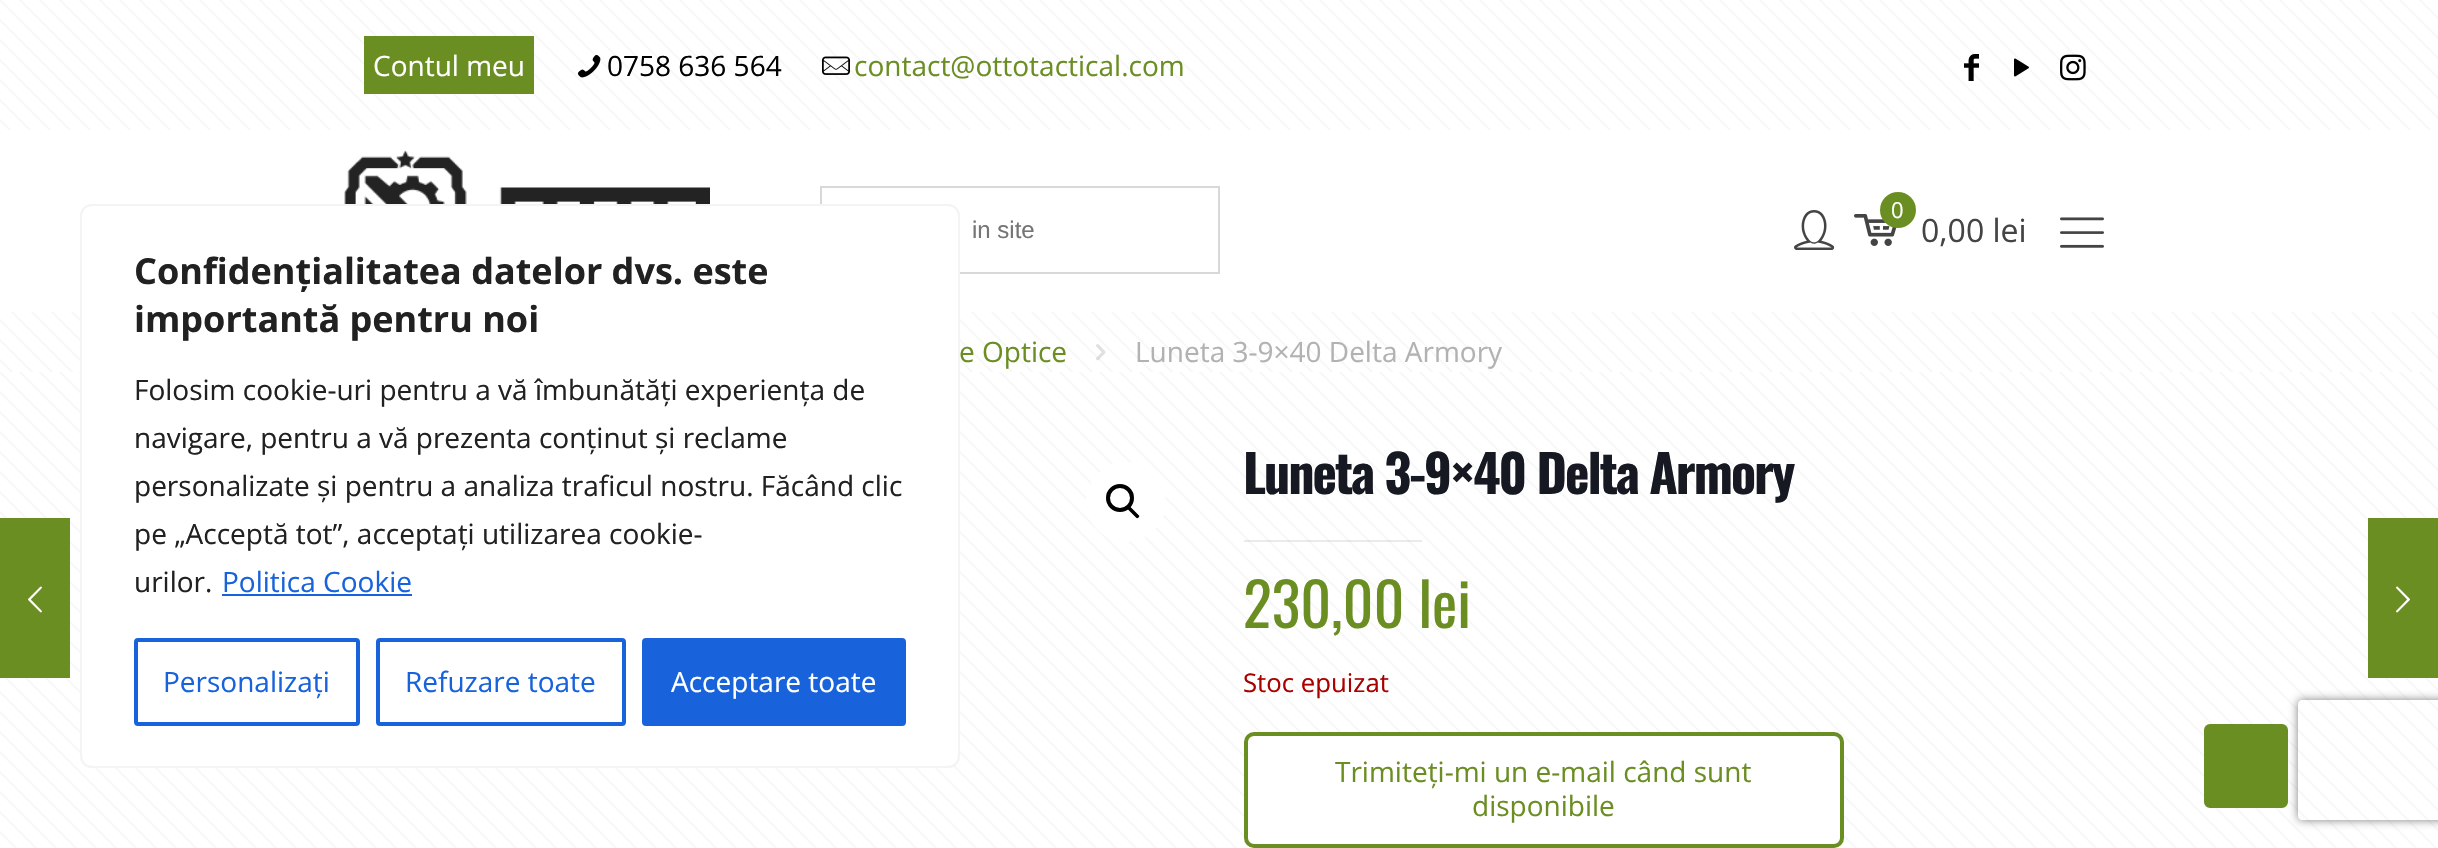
void draw(SkCanvas* canvas) {
	SkPaint fill;
	fill.setAntiAlias(true);
	auto makeFont = [&](const char* family, int weight, float size, bool italic = false) {
		SkFontStyle style(weight, SkFontStyle::kNormal_Width,
			italic ? SkFontStyle::kItalic_Slant : SkFontStyle::kUpright_Slant);
		SkFont result(fontMgr->matchFamilyStyle(family, style), size);
		result.setSubpixel(true);
		return result;
	};
	auto text = [&](const char* s, float x, float y, const SkFont& font) {
		canvas->drawString(s, x, y, font, fill);
	};
	auto spacedText = [&](const char* s, float x, float y, const SkFont& font, const SkPaint& ink, float letter, float word) {
		std::vector<SkGlyphID> glyphs(font.countText(s, strlen(s), SkTextEncoding::kUTF8));
		std::vector<float> xs(glyphs.size());
		font.textToGlyphs(s, strlen(s), SkTextEncoding::kUTF8, glyphs);
		font.getXPos(glyphs, xs, x);
		float extra = 0;
		for (size_t i = 0; i < glyphs.size(); i++) {
			xs[i] += extra;
			extra += letter + word * (glyphs[i] == font.unicharToGlyph(' '));
		}
		canvas->drawTextBlob(SkTextBlob::MakeFromPosHGlyphs(glyphs, xs, y, font), 0, 0, ink);
	};
	auto box = [&](float l, float t, float r, float b) {
		canvas->drawRect(SkRect::MakeLTRB(l, t, r, b), fill);
	};
	auto picture = [&](const char* path, float l, float t, float r, float b) {
		auto image = SkImages::DeferredFromEncodedData(SkData::MakeFromFileName(path));
		canvas->drawImageRect(image, SkRect::MakeLTRB(l, t, r, b), SkSamplingOptions());
	};
	canvas->clear(0xFFFFFFFF);
	picture("image0.png", 0, 0, 2438, 372);
	fill.setColor(0xFF6B8E23);
	box(364, 36, 534, 94);
	picture("image1.png", 578, 55, 601, 78);
	picture("image2.png", 822, 56, 850, 75);
	picture("image3.png", 1964, 54, 1979, 81);
	picture("image4.png", 2014, 58, 2029, 77);
	picture("image5.png", 2060, 54, 2086, 81);
	fill.setColor(0xFFFFFFFF);
	box(0, 130, 2438, 312);
	picture("image6.png", 344, 150, 710, 204);
	fill.setStyle(SkPaint::kStroke_Style);
	fill.setStrokeWidth(2);
	fill.setColor(0xFFD8D8D8);
	canvas->drawRect(SkRect::MakeLTRB(821, 187, 1219, 273), fill);
	picture("image7.png", 1794, 210, 1835, 250);
	picture("image8.png", 1854, 214, 1897, 246);
	fill.setStyle(SkPaint::kFill_Style);
	fill.setColor(0xFF6B8E23);
	canvas->drawCircle(1898, 210, 18, fill);
	picture("image9.png", 2060, 217, 2104, 248);
	picture("image10.png", 1096, 344, 1106, 361);
	picture("image11.png", 0, 372, 2438, 848);
	fill.setColor(0xFFFFFFFF);
	canvas->drawCircle(1126, 502, 40, fill);
	fill.setStyle(SkPaint::kStroke_Style);
	fill.setStrokeWidth(4);
	fill.setColor(0xFF000000);
	canvas->drawCircle(1120, 498, 12, fill);
	fill.setStyle(SkPaint::kFill_Style);
	canvas->drawPath(SkPathBuilder().moveTo(1127.5f, 506.5f).cubicTo(1128, 505.5f, 1129.5f, 505.5f, 1130, 506.5f).lineTo(1138.5f, 515).cubicTo(1139.5f, 515.5f, 1139.5f, 517, 1138.5f, 517.5f).cubicTo(1138, 518.5f, 1136.5f, 518.5f, 1136, 517.5f).lineTo(1127.5f, 509).cubicTo(1126.5f, 508.5f, 1126.5f, 507, 1127.5f, 506.5f).close().detach(), fill);
	fill.setColor(0x14000000);
	box(1244, 540, 1422, 542);
	fill.setColor(0xFFFFFFFF);
	canvas->drawRoundRect(SkRect::MakeLTRB(1246, 734, 1842, 846), 8, 8, fill);
	fill.setStyle(SkPaint::kStroke_Style);
	fill.setColor(0xFF6B8E23);
	canvas->drawRoundRect(SkRect::MakeLTRB(1246, 734, 1842, 846), 8, 8, fill);
	fill.setStyle(SkPaint::kFill_Style);
	box(0, 518, 70, 678);
	picture("image12.png", 28, 586, 42, 613);
	canvas->save();
	canvas->clipPath(SkPathBuilder().moveTo(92, 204).lineTo(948, 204).cubicTo(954.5f, 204, 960, 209.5f, 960, 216).lineTo(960, 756).cubicTo(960, 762.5f, 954.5f, 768, 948, 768).lineTo(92, 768).cubicTo(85.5f, 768, 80, 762.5f, 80, 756).lineTo(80, 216).cubicTo(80, 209.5f, 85.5f, 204, 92, 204).close().detach(), true);
	fill.setColor(0x4DACABAB);
	fill.setMaskFilter(SkMaskFilter::MakeBlur(kNormal_SkBlurStyle, 10));
	canvas->drawRoundRect(SkRect::MakeLTRB(80, 202, 960, 766), 12, 12, fill);
	fill.setMaskFilter(nullptr);
	canvas->restore();
	fill.setColor(0xFFFFFFFF);
	canvas->drawRoundRect(SkRect::MakeLTRB(81, 205, 959, 767), 11, 11, fill);
	fill.setStyle(SkPaint::kStroke_Style);
	fill.setStrokeWidth(2);
	fill.setColor(0xFFF4F4F4);
	canvas->drawRoundRect(SkRect::MakeLTRB(81, 205, 959, 767), 11, 11, fill);
	fill.setStyle(SkPaint::kFill_Style);
	fill.setColor(0xFF1863DC);
	box(222, 594, 412, 596);
	fill.setStyle(SkPaint::kStroke_Style);
	fill.setStrokeWidth(4);
	canvas->drawRoundRect(SkRect::MakeLTRB(136, 640, 358, 724), 2, 2, fill);
	canvas->drawRoundRect(SkRect::MakeLTRB(378, 640, 624, 724), 2, 2, fill);
	fill.setStyle(SkPaint::kFill_Style);
	canvas->drawRoundRect(SkRect::MakeLTRB(644, 640, 904, 724), 2, 2, fill);
	fill.setStyle(SkPaint::kStroke_Style);
	canvas->drawRoundRect(SkRect::MakeLTRB(644, 640, 904, 724), 2, 2, fill);
	fill.setStyle(SkPaint::kFill_Style);
	fill.setColor(0xFF6B8E23);
	box(2368, 518, 2438, 678);
	picture("image13.png", 2396, 586, 2410, 613);
	canvas->save();
	canvas->clipPath(SkPathBuilder(SkPathFillType::kEvenOdd).moveTo(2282, 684).lineTo(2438, 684).lineTo(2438, 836).lineTo(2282, 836).close().moveTo(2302, 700).lineTo(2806, 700).cubicTo(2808, 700, 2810, 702, 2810, 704).lineTo(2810, 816).cubicTo(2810, 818, 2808, 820, 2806, 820).lineTo(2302, 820).cubicTo(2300, 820, 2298, 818, 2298, 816).lineTo(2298, 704).cubicTo(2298, 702, 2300, 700, 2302, 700).close().detach(), true);
	fill.setColor(0xFF808080);
	fill.setMaskFilter(SkMaskFilter::MakeBlur(kNormal_SkBlurStyle, 5));
	canvas->drawRoundRect(SkRect::MakeLTRB(2298, 700, 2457, 820), 4, 4, fill);
	fill.setMaskFilter(nullptr);
	canvas->restore();
	fill.setColor(0xFF6B8E23);
	canvas->drawRoundRect(SkRect::MakeLTRB(2206, 726, 2286, 806), 4, 4, fill);
	fill.setStyle(SkPaint::kStroke_Style);
	canvas->drawRoundRect(SkRect::MakeLTRB(2206, 726, 2286, 806), 4, 4, fill);
	auto font1 = makeFont("Open Sans", 400, 28);
	fill.setStyle(SkPaint::kFill_Style);
	fill.setColor(0xFFFFFFFF);
	text("Contul meu", 373, 76, font1);
	fill.setColor(0xFF000000);
	text("0758 636 564", 607, 76, font1);
	fill.setColor(0xFF6B8E23);
	text("contact@ottotactical.com", 854, 76, font1);
	auto font2 = makeFont("Liberation Sans", 400, 24);
	fill.setColor(0xFF757575);
	text("in site", 972, 238, font2);
	auto font3 = makeFont("Open Sans", 400, 22);
	fill.setColor(0xFFFFFFFF);
	text("0", 1891, 218, font3);
	auto font4 = makeFont("Open Sans", 400, 32);
	fill.setColor(0xFF444444);
	text("0,00 lei", 1921, 242, font4);
	fill.setColor(0xFF6B8E23);
	text("e Optice", 959, 362, font1);
	fill.setColor(0xFFB2B2B2);
	text("Luneta 3-9×40 Delta Armory", 1135, 362, font1);
	auto font5 = makeFont("Oswald", 700, 52);
	fill.setColor(0xFF161922);
	spacedText("Luneta 3-9×40 Delta Armory", 1243, 494, font5, fill, -2, 0);
	auto font6 = makeFont("Oswald", 400, 60);
	fill.setColor(0xFF6B8E23);
	text("230,00 lei", 1243, 628, font6);
	auto font7 = makeFont("Open Sans", 400, 25.75f);
	fill.setColor(0xFFAA0000);
	text("Stoc epuizat", 1243, 692, font7);
	fill.setColor(0xFF6B8E23);
	text("Trimiteți-mi un e-mail când sunt", 1335, 782, font1);
	text("disponibile", 1472, 816, font1);
	auto font8 = makeFont("Open Sans", 700, 36);
	fill.setColor(0xFF212121);
	text("Confidențialitatea datelor dvs. este", 134, 284, font8);
	text("importantă pentru noi", 134, 332, font8);
	text("Folosim cookie-uri pentru a vă îmbunătăți experiența de", 134, 400, font1);
	text("navigare, pentru a vă prezenta conținut și reclame", 134, 448, font1);
	text("personalizate și pentru a analiza traficul nostru. Făcând clic", 134, 496, font1);
	text("pe „Acceptă tot”, acceptați utilizarea cookie-", 134, 544, font1);
	text("urilor.", 134, 592, font1);
	fill.setColor(0xFF1863DC);
	text("Politica Cookie", 222, 592, font1);
	text("Personalizați", 163, 692, font1);
	text("Refuzare toate", 405, 692, font1);
	fill.setColor(0xFFFFFFFF);
	text("Acceptare toate", 671, 692, font1);
}
